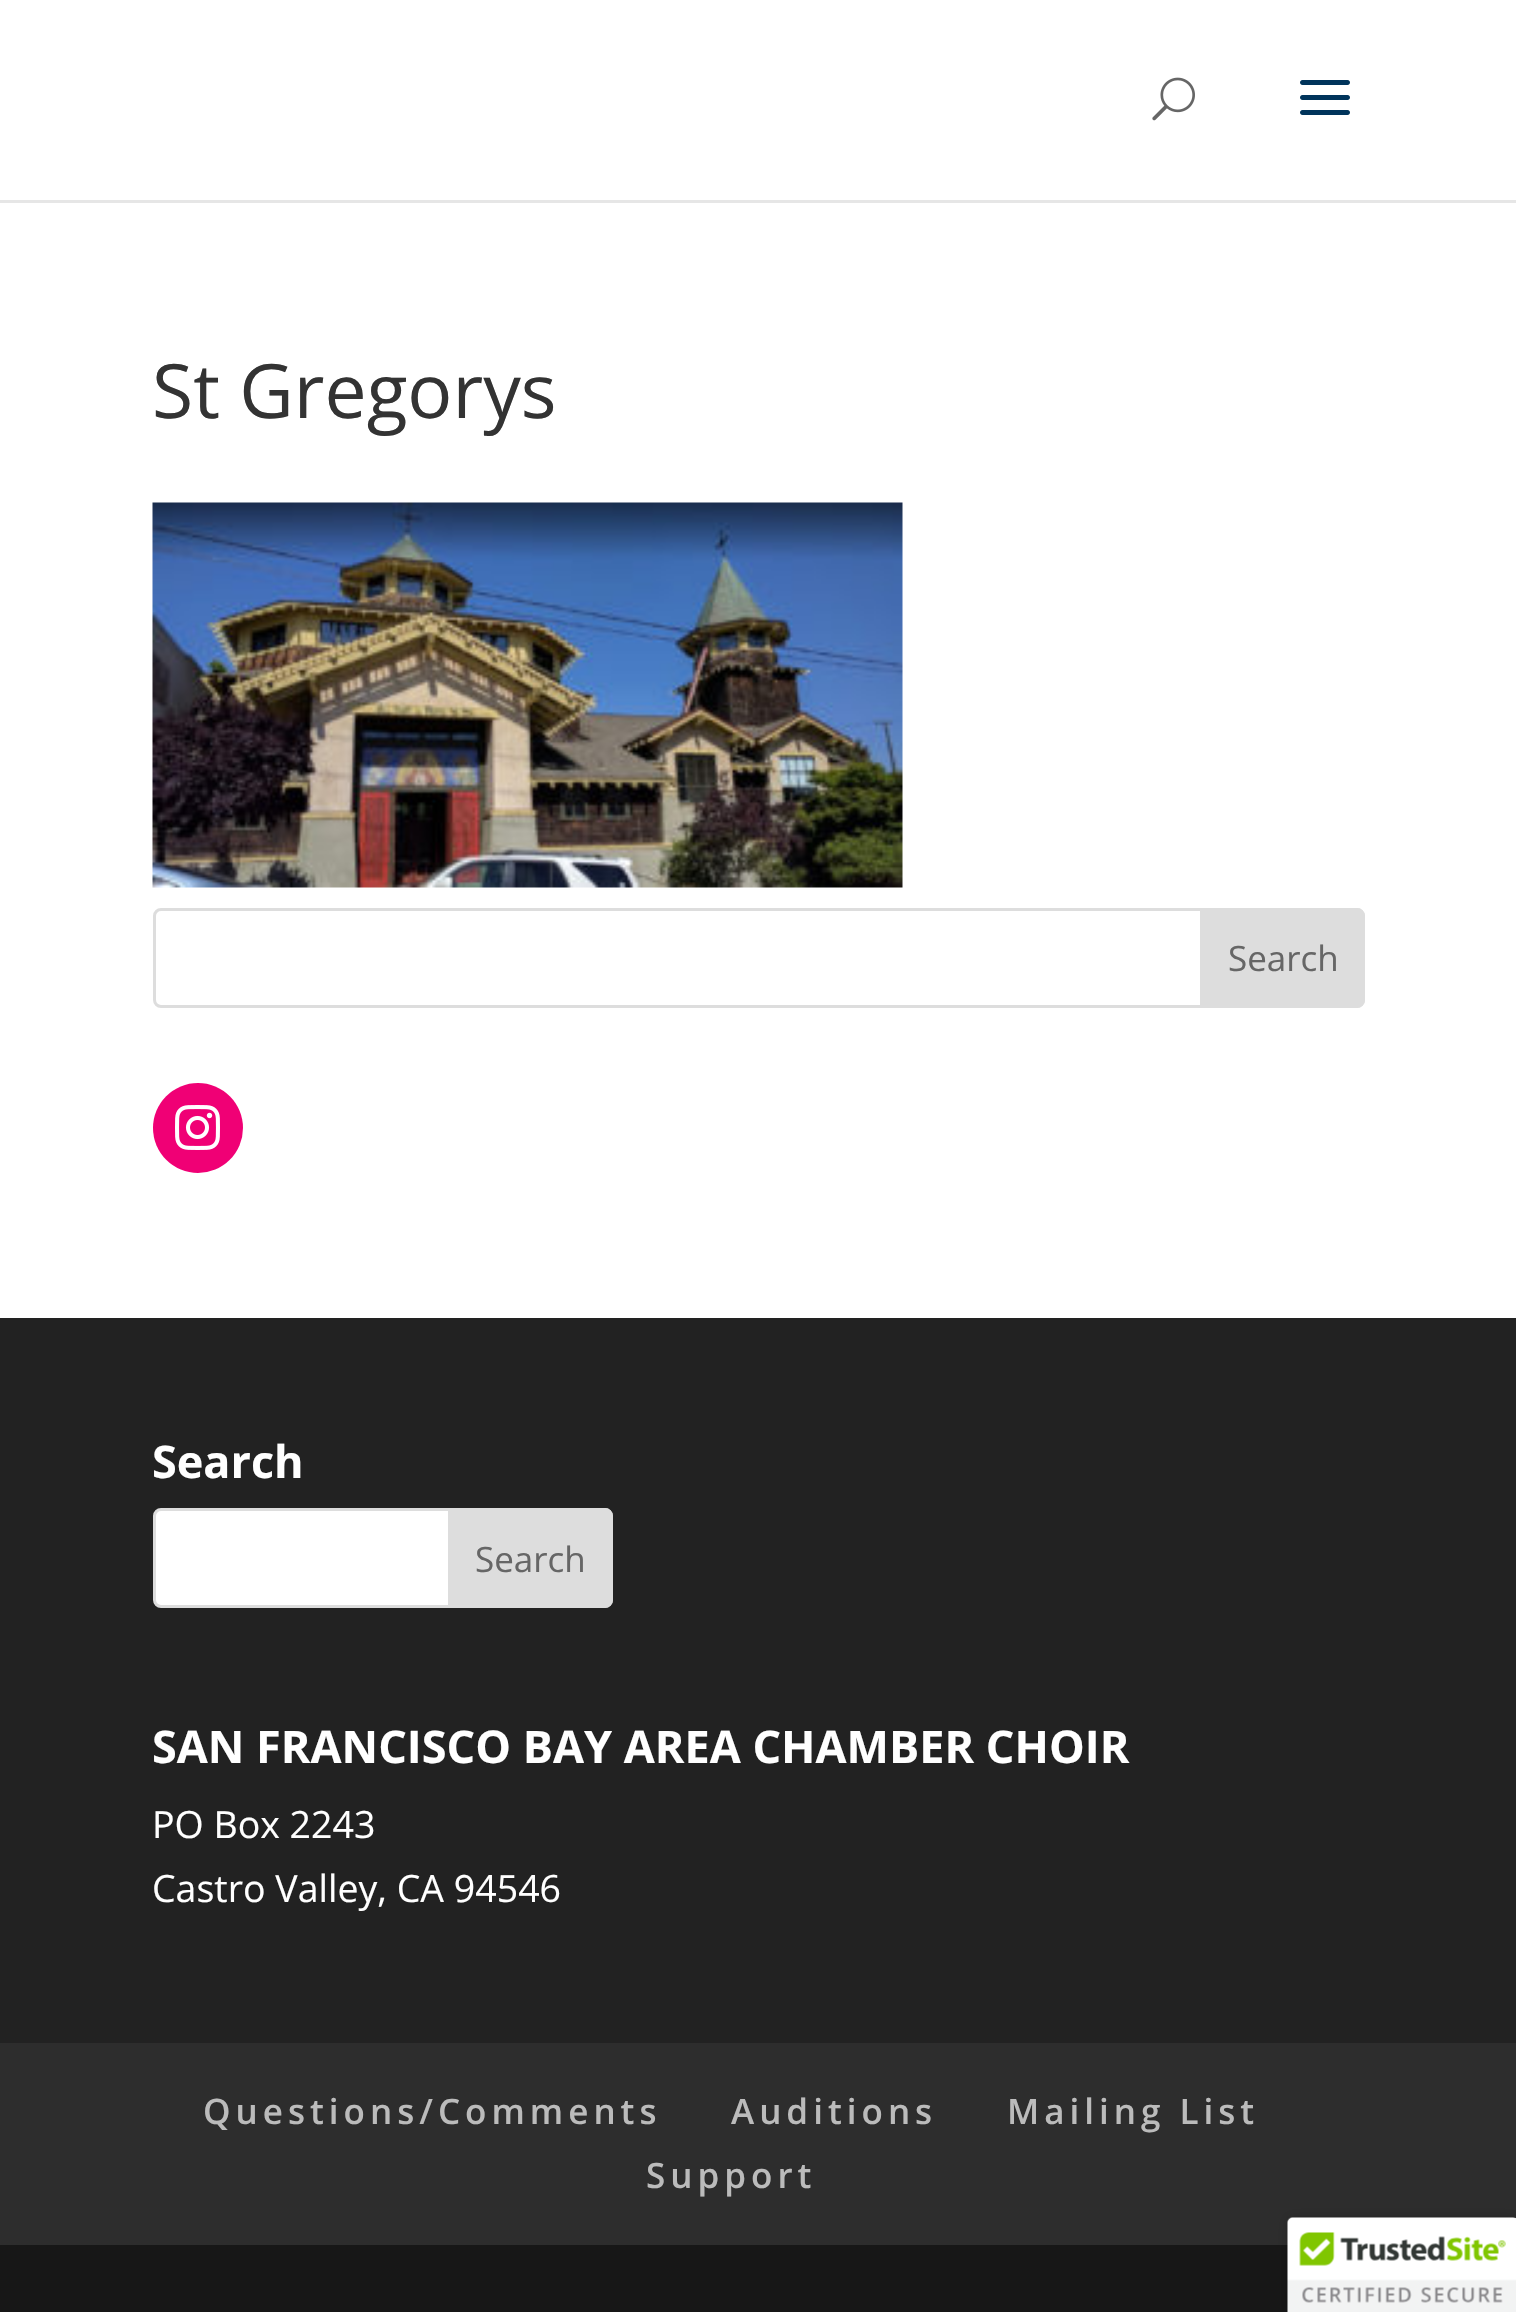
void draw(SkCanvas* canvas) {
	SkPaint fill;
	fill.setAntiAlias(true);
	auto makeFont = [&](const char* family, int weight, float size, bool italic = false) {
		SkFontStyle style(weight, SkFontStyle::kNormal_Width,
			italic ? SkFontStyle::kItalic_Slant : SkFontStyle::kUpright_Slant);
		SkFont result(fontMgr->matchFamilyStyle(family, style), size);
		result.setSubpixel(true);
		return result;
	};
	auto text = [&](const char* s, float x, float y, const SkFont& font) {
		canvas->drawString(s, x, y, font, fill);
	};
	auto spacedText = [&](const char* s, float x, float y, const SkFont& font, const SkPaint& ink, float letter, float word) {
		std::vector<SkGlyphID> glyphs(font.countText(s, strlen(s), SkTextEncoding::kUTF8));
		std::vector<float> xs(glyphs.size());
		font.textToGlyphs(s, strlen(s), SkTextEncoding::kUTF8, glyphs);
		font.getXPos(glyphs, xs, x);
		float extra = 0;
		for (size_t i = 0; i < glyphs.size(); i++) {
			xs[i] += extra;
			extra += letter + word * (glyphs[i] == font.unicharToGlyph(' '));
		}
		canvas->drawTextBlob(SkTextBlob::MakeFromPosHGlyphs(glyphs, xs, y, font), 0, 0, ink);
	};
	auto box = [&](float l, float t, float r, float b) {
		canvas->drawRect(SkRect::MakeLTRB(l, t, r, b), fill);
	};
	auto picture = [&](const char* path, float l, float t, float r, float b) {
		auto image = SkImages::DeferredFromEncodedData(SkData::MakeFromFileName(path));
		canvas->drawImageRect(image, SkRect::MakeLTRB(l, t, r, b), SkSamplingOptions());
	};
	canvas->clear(0xFFFFFFFF);
	fill.setColor(0xFFE6E6E6);
	canvas->drawPath(SkPathBuilder().moveTo(0, 200).lineTo(0, 203).lineTo(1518, 203).lineTo(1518, 3).lineTo(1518, 200).close().detach(), fill);
	picture("image0.png", 1152, 77, 1195, 121);
	picture("image1.png", 1300, 80, 1350, 115);
	picture("image2.png", 152, 502, 903, 888);
	fill.setStyle(SkPaint::kStroke_Style);
	fill.setStrokeWidth(3);
	fill.setColor(0xFFDDDDDD);
	canvas->drawRoundRect(SkRect::MakeLTRB(154.5f, 909.5f, 1363.5f, 1006.5f), 6.5f, 6.5f, fill);
	fill.setStyle(SkPaint::kFill_Style);
	canvas->drawPath(SkPathBuilder().moveTo(1201.5f, 909.5f).lineTo(1357, 909.5f).cubicTo(1360.5f, 909.5f, 1363.5f, 912.5f, 1363.5f, 916).lineTo(1363.5f, 1000).cubicTo(1363.5f, 1003.5f, 1360.5f, 1006.5f, 1357, 1006.5f).lineTo(1201.5f, 1006.5f).close().detach(), fill);
	fill.setStyle(SkPaint::kStroke_Style);
	canvas->drawPath(SkPathBuilder().moveTo(1201.5f, 909.5f).lineTo(1357, 909.5f).cubicTo(1360.5f, 909.5f, 1363.5f, 912.5f, 1363.5f, 916).lineTo(1363.5f, 1000).cubicTo(1363.5f, 1003.5f, 1360.5f, 1006.5f, 1357, 1006.5f).lineTo(1201.5f, 1006.5f).close().detach(), fill);
	fill.setStyle(SkPaint::kFill_Style);
	fill.setColor(0xFFF00075);
	canvas->drawCircle(198, 1128, 45, fill);
	picture("image3.png", 175, 1105, 220, 1150);
	fill.setColor(0xFF222222);
	box(0, 1318, 1516, 2043);
	fill.setColor(0xFFFFFFFF);
	canvas->drawRoundRect(SkRect::MakeLTRB(154.5f, 1509.5f, 611.5f, 1606.5f), 6.5f, 6.5f, fill);
	fill.setStyle(SkPaint::kStroke_Style);
	fill.setColor(0xFFDDDDDD);
	canvas->drawRoundRect(SkRect::MakeLTRB(154.5f, 1509.5f, 611.5f, 1606.5f), 6.5f, 6.5f, fill);
	fill.setStyle(SkPaint::kFill_Style);
	canvas->drawPath(SkPathBuilder().moveTo(449.5f, 1509.5f).lineTo(605, 1509.5f).cubicTo(608.5f, 1509.5f, 611.5f, 1512.5f, 611.5f, 1516).lineTo(611.5f, 1600).cubicTo(611.5f, 1603.5f, 608.5f, 1606.5f, 605, 1606.5f).lineTo(449.5f, 1606.5f).close().detach(), fill);
	fill.setStyle(SkPaint::kStroke_Style);
	canvas->drawPath(SkPathBuilder().moveTo(449.5f, 1509.5f).lineTo(605, 1509.5f).cubicTo(608.5f, 1509.5f, 611.5f, 1512.5f, 611.5f, 1516).lineTo(611.5f, 1600).cubicTo(611.5f, 1603.5f, 608.5f, 1606.5f, 605, 1606.5f).lineTo(449.5f, 1606.5f).close().detach(), fill);
	fill.setStyle(SkPaint::kFill_Style);
	fill.setColor(0xFF2D2D2D);
	box(0, 2043, 1516, 2245);
	fill.setColor(0xFF171717);
	box(0, 2245, 1288, 2312);
	fill.setColor(0x33000000);
	fill.setMaskFilter(SkMaskFilter::MakeBlur(kNormal_SkBlurStyle, 6));
	canvas->drawRoundRect(SkRect::MakeLTRB(1288, 2218, 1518, 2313), 5, 5, fill);
	fill.setMaskFilter(nullptr);
	fill.setColor(0xFFFFFFFF);
	canvas->drawPath(SkPathBuilder().moveTo(1293, 2218).lineTo(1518, 2218).lineTo(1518, 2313).lineTo(1288, 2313).lineTo(1288, 2223).cubicTo(1288, 2220, 1290, 2218, 1293, 2218).close().detach(), fill);
	picture("image4.png", 1287, 2217, 1516, 2312);
	auto font1 = makeFont("Open Sans", 400, 75);
	fill.setColor(0xFF333333);
	text("St Gregorys", 152, 418, font1);
	auto font2 = makeFont("Open Sans", 400, 35);
	fill.setColor(0xFF666666);
	text("Search", 1228, 971, font2);
	auto font3 = makeFont("Open Sans", 700, 45);
	fill.setColor(0xFFFFFFFF);
	text("Search", 152, 1478, font3);
	fill.setColor(0xFF666666);
	text("Search", 475, 1572, font2);
	fill.setColor(0xFFFFFFFF);
	text("SAN FRANCISCO BAY AREA CHAMBER CHOIR", 152, 1763, font3);
	auto font4 = makeFont("Open Sans", 400, 37.5f);
	text("PO Box 2243", 152, 1838, font4);
	text("Castro Valley, CA 94546", 152, 1902, font4);
	auto font5 = makeFont("Open Sans", 600, 35);
	fill.setColor(0xFFBBBBBB);
	spacedText("Questions/Comments", 203, 2124, font5, fill, 5, 0);
	spacedText("Auditions", 731, 2124, font5, fill, 5, 0);
	spacedText("Mailing List", 1007, 2124, font5, fill, 5, 0);
	spacedText("Support", 646, 2188, font5, fill, 5, 0);
}
